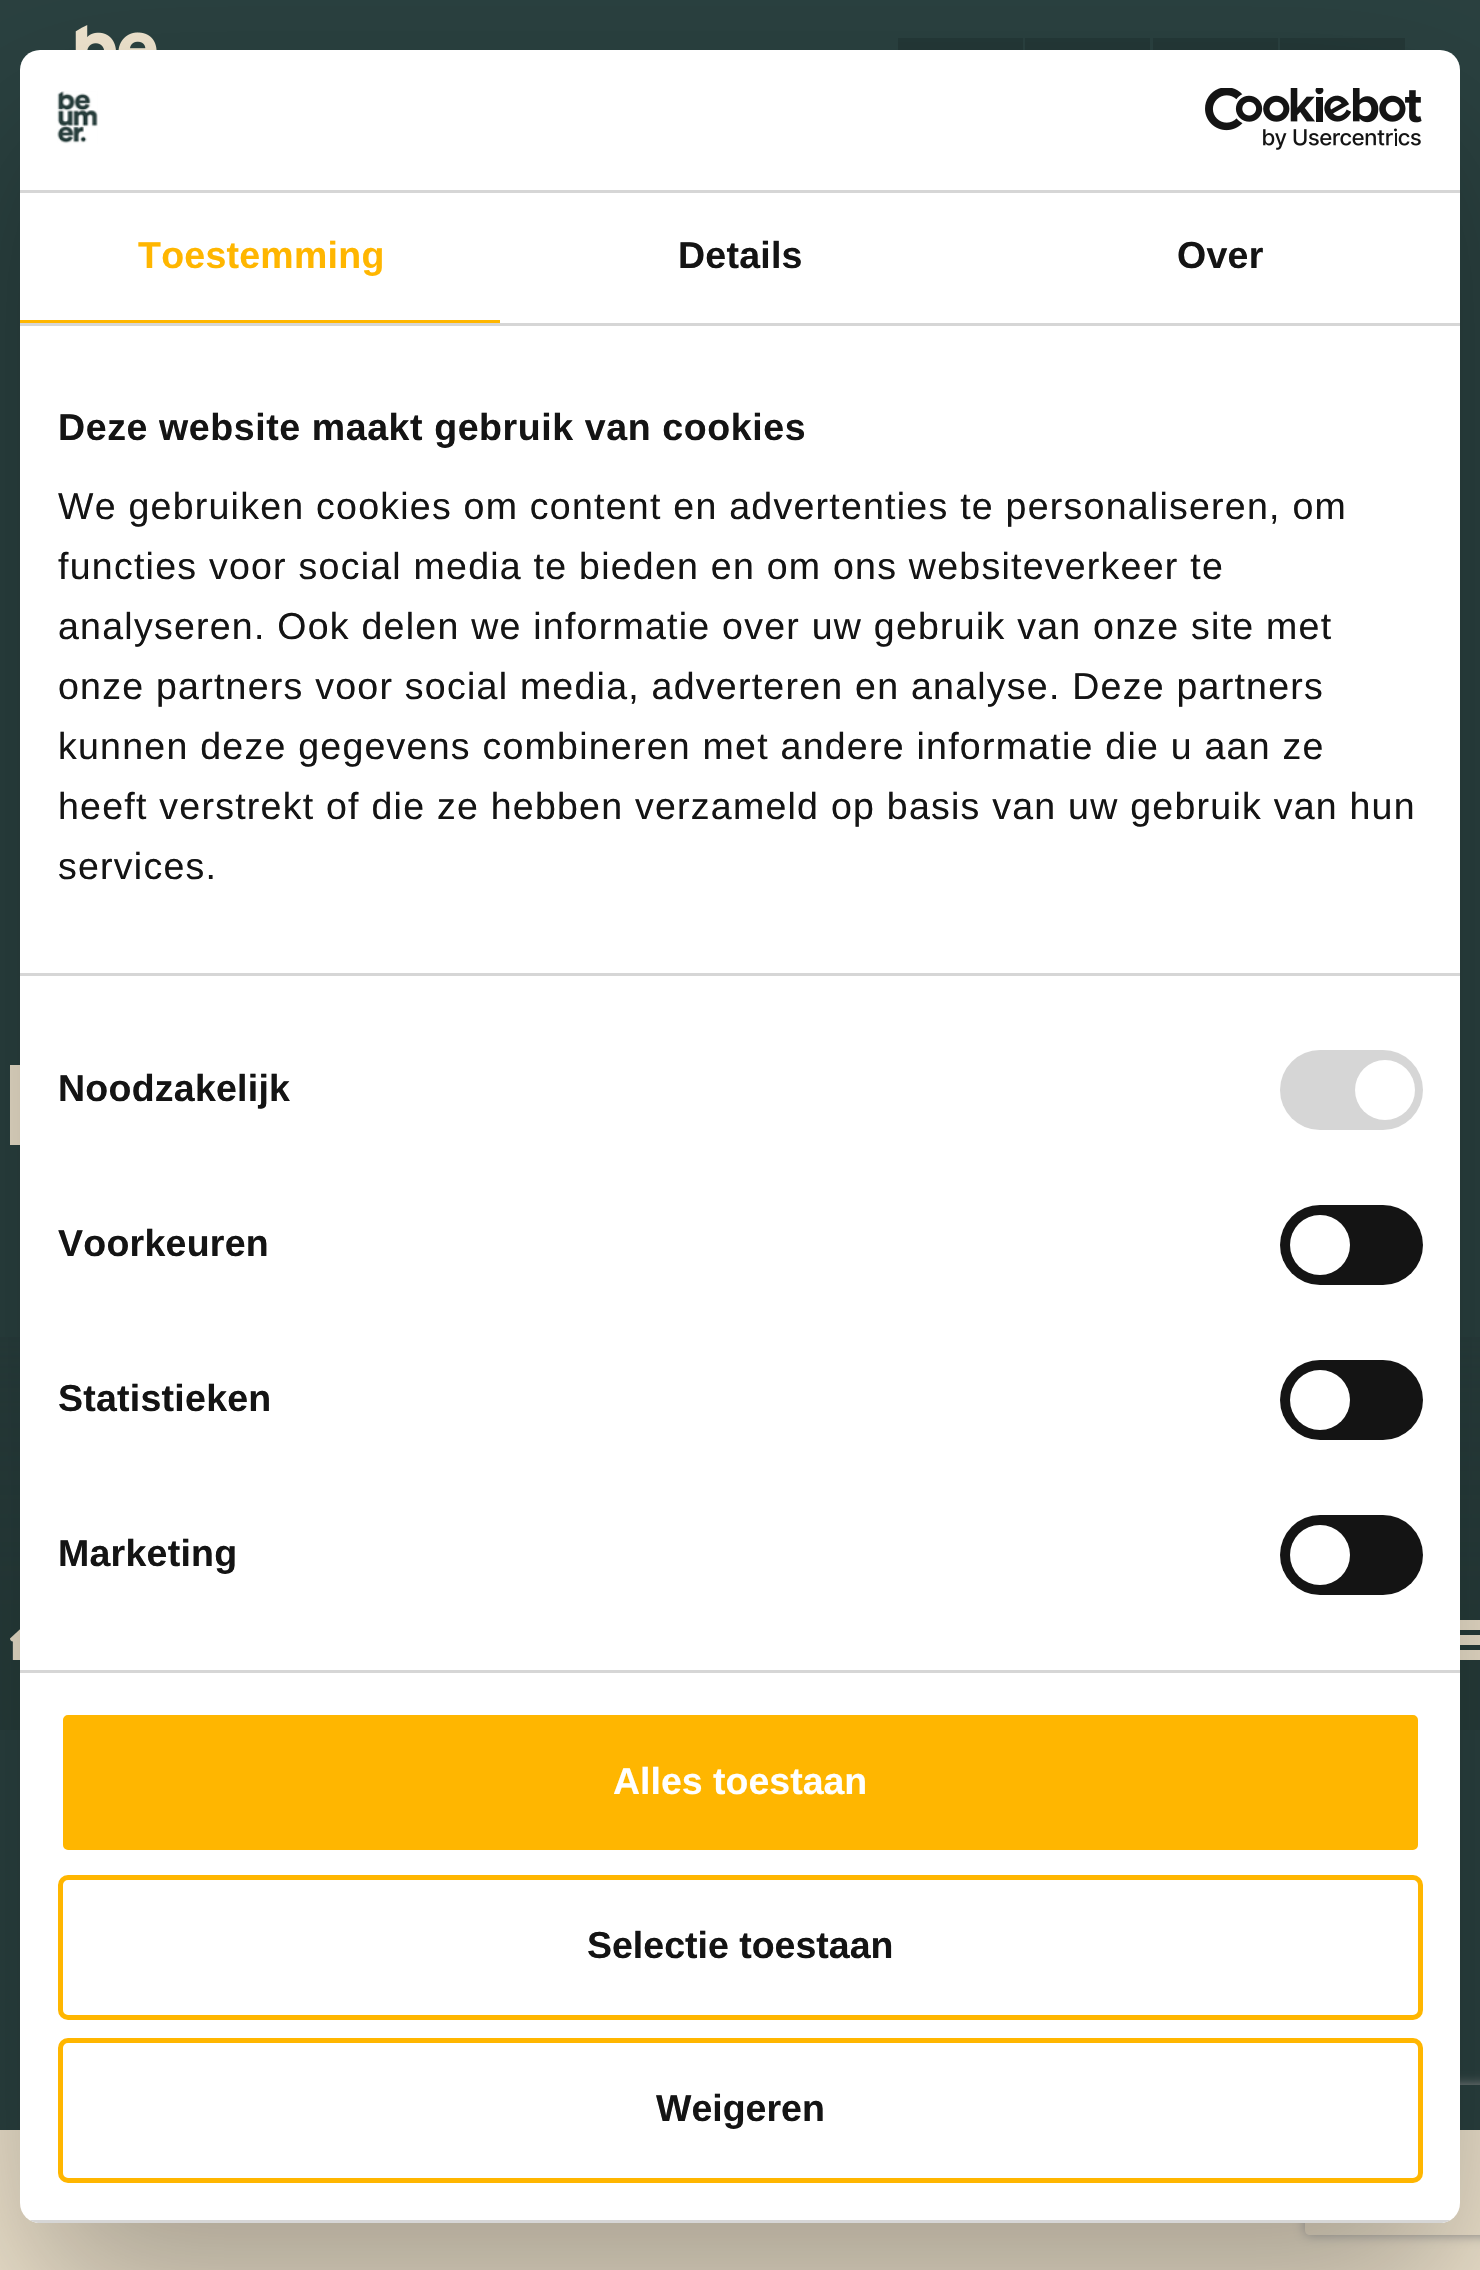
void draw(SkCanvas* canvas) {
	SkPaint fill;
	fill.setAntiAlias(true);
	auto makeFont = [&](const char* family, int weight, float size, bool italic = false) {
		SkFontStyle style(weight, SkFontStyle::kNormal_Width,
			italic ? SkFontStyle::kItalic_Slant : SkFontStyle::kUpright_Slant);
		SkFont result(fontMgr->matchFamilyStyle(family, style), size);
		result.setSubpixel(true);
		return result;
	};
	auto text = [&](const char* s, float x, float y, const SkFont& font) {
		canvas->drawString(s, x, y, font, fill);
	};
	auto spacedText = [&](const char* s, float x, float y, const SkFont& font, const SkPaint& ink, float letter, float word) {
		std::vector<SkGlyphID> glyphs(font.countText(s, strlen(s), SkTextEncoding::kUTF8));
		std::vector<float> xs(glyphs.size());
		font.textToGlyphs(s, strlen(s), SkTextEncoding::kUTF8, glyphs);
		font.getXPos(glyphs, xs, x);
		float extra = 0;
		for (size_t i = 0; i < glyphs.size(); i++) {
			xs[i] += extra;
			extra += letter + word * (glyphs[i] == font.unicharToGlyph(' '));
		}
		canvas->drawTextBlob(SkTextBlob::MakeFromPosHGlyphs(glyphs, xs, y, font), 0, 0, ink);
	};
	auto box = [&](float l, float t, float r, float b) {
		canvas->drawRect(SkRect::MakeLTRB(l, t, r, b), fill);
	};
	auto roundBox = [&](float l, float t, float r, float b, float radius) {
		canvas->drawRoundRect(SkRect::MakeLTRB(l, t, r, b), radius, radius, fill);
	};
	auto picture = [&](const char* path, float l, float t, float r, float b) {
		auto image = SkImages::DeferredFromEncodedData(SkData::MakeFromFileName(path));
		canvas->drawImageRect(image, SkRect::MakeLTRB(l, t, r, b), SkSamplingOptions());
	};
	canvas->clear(0xFF2A4140);
	picture("image0.png", 75, 25, 157, 50);
	fill.setColor(0xFF243837);
	box(898, 38, 1023, 50);
	box(1025, 38, 1150, 50);
	box(1153, 38, 1278, 50);
	box(1280, 38, 1405, 50);
	fill.setColor(0xFFF0E5CF);
	box(10, 1065, 20, 1145);
	{
		const SkColor colors[] = {0x00243837, 0x63243837, 0x8C243837};
		const float stops[] = {0.26f, 0.56f, 0.83f};
		const SkPoint ends[] = {{369, 1005}, {369, 1730}};
		fill.setShader(SkGradientShader::MakeLinear(ends, colors, stops, 3, SkTileMode::kClamp));
		fill.setAlpha(255);
	}
	box(0, 1337, 20, 1730);
	picture("image3.png", 10, 1629, 20, 1660);
	{
		const SkColor colors[] = {0x00243837, 0x63243837, 0x8C243837};
		const float stops[] = {0.26f, 0.56f, 0.83f};
		const SkPoint ends[] = {{1256, 1005}, {1256, 1730}};
		fill.setShader(SkGradientShader::MakeLinear(ends, colors, stops, 3, SkTileMode::kClamp));
		fill.setAlpha(255);
	}
	box(1460, 1337, 1480, 1730);
	picture("image4.png", 1460, 1620, 1480, 1660);
	fill.setShader(nullptr);
	fill.setColor(0xFFF0E5CF);
	box(0, 2130, 1480, 2270);
	fill.setColor(0x4D000000);
	fill.setMaskFilter(SkMaskFilter::MakeBlur(kNormal_SkBlurStyle, 85));
	canvas->drawRoundRect(SkRect::MakeLTRB(20, 130, 1460, 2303), 20, 20, fill);
	fill.setMaskFilter(nullptr);
	canvas->save();
	canvas->clipPath(SkPathBuilder(SkPathFillType::kEvenOdd).moveTo(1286, 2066).lineTo(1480, 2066).lineTo(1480, 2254).lineTo(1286, 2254).close().moveTo(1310, 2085).lineTo(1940, 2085).cubicTo(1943, 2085, 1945, 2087, 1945, 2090).lineTo(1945, 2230).cubicTo(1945, 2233, 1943, 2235, 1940, 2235).lineTo(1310, 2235).cubicTo(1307, 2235, 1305, 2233, 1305, 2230).lineTo(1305, 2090).cubicTo(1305, 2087, 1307, 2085, 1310, 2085).close().detach(), true);
	fill.setColor(0xFF808080);
	fill.setMaskFilter(SkMaskFilter::MakeBlur(kNormal_SkBlurStyle, 6));
	canvas->drawRoundRect(SkRect::MakeLTRB(1305, 2085, 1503, 2235), 5, 5, fill);
	fill.setMaskFilter(nullptr);
	canvas->restore();
	fill.setColor(0xFFFFFFFF);
	roundBox(20, 50, 1460, 2223, 20);
	fill.setColor(0xFFD6D6D6);
	box(20, 190, 1460, 193);
	picture("image1.png", 57, 91, 98, 144);
	picture("image2.png", 1205, 88, 1422, 150);
	box(20, 323, 1460, 326);
	fill.setColor(0xFFFFB600);
	box(20, 320, 500, 323);
	fill.setColor(0xFFD6D6D6);
	box(20, 973, 1460, 976);
	box(20, 1670, 1460, 1673);
	roundBox(1280, 1050, 1423, 1130, 40);
	fill.setColor(0xFFFFFFFF);
	canvas->drawCircle(1385, 1090, 30, fill);
	fill.setColor(0xFF141414);
	roundBox(1280, 1205, 1423, 1285, 40);
	fill.setColor(0xFFFFFFFF);
	canvas->drawCircle(1320, 1245, 30, fill);
	fill.setColor(0xFF141414);
	roundBox(1280, 1360, 1423, 1440, 40);
	fill.setColor(0xFFFFFFFF);
	canvas->drawCircle(1320, 1400, 30, fill);
	fill.setColor(0xFF141414);
	roundBox(1280, 1515, 1423, 1595, 40);
	fill.setColor(0xFFFFFFFF);
	canvas->drawCircle(1320, 1555, 30, fill);
	canvas->save();
	canvas->clipPath(SkPathBuilder().moveTo(40, 50).lineTo(1440, 50).cubicTo(1451, 50, 1460, 59, 1460, 70).lineTo(1460, 2203).cubicTo(1460, 2214, 1451, 2223, 1440, 2223).lineTo(40, 2223).cubicTo(29, 2223, 20, 2214, 20, 2203).lineTo(20, 70).cubicTo(20, 59, 29, 50, 40, 50).close().detach(), true);
	fill.setColor(0xFFD6D6D6);
	box(29, 2220, 1451, 2223);
	canvas->restore();
	fill.setColor(0xFFFFB600);
	canvas->drawRoundRect(SkRect::MakeLTRB(60.5f, 1712.5f, 1420.5f, 1852.5f), 7.5f, 7.5f, fill);
	fill.setStyle(SkPaint::kStroke_Style);
	fill.setStrokeWidth(5);
	fill.setColor(0xFFFFFFFF);
	canvas->drawRoundRect(SkRect::MakeLTRB(60.5f, 1712.5f, 1420.5f, 1852.5f), 7.5f, 7.5f, fill);
	fill.setColor(0xFFFFB600);
	canvas->drawRoundRect(SkRect::MakeLTRB(60.5f, 1877.5f, 1420.5f, 2017.5f), 7.5f, 7.5f, fill);
	canvas->drawRoundRect(SkRect::MakeLTRB(60.5f, 2040.5f, 1420.5f, 2180.5f), 7.5f, 7.5f, fill);
	auto font1 = makeFont("Liberation Sans", 700, 37.5f);
	fill.setStyle(SkPaint::kFill_Style);
	spacedText("Toestemming", 138, 268, font1, fill, 0.25f, 0);
	fill.setColor(0xFF141414);
	spacedText("Details", 678, 268, font1, fill, 0.25f, 0);
	spacedText("Over", 1177, 268, font1, fill, 0.25f, 0);
	spacedText("Deze website maakt gebruik van cookies", 58, 440, font1, fill, 0.6f, 0);
	auto font2 = makeFont("Liberation Sans", 400, 37.5f);
	spacedText("We gebruiken cookies om content en advertenties te personaliseren, om", 58, 519, font2, fill, 1.25f, 0);
	spacedText("functies voor social media te bieden en om ons websiteverkeer te", 58, 579, font2, fill, 1.25f, 0);
	spacedText("analyseren. Ook delen we informatie over uw gebruik van onze site met", 58, 639, font2, fill, 1.25f, 0);
	spacedText("onze partners voor social media, adverteren en analyse. Deze partners", 58, 699, font2, fill, 1.25f, 0);
	spacedText("kunnen deze gegevens combineren met andere informatie die u aan ze", 58, 759, font2, fill, 1.25f, 0);
	spacedText("heeft verstrekt of die ze hebben verzameld op basis van uw gebruik van hun", 58, 819, font2, fill, 1.25f, 0);
	spacedText("services.", 58, 879, font2, fill, 1.25f, 0);
	spacedText("Noodzakelijk", 58, 1101, font1, fill, 0.25f, 0);
	spacedText("Voorkeuren", 58, 1256, font1, fill, 0.25f, 0);
	spacedText("Statistieken", 58, 1411, font1, fill, 0.25f, 0);
	spacedText("Marketing", 58, 1566, font1, fill, 0.25f, 0);
	fill.setColor(0xFFFFFFFF);
	text("Alles toestaan", 613, 1794, font1);
	fill.setColor(0xFF141414);
	text("Selectie toestaan", 587, 1958, font1);
	text("Weigeren", 656, 2121, font1);
}
